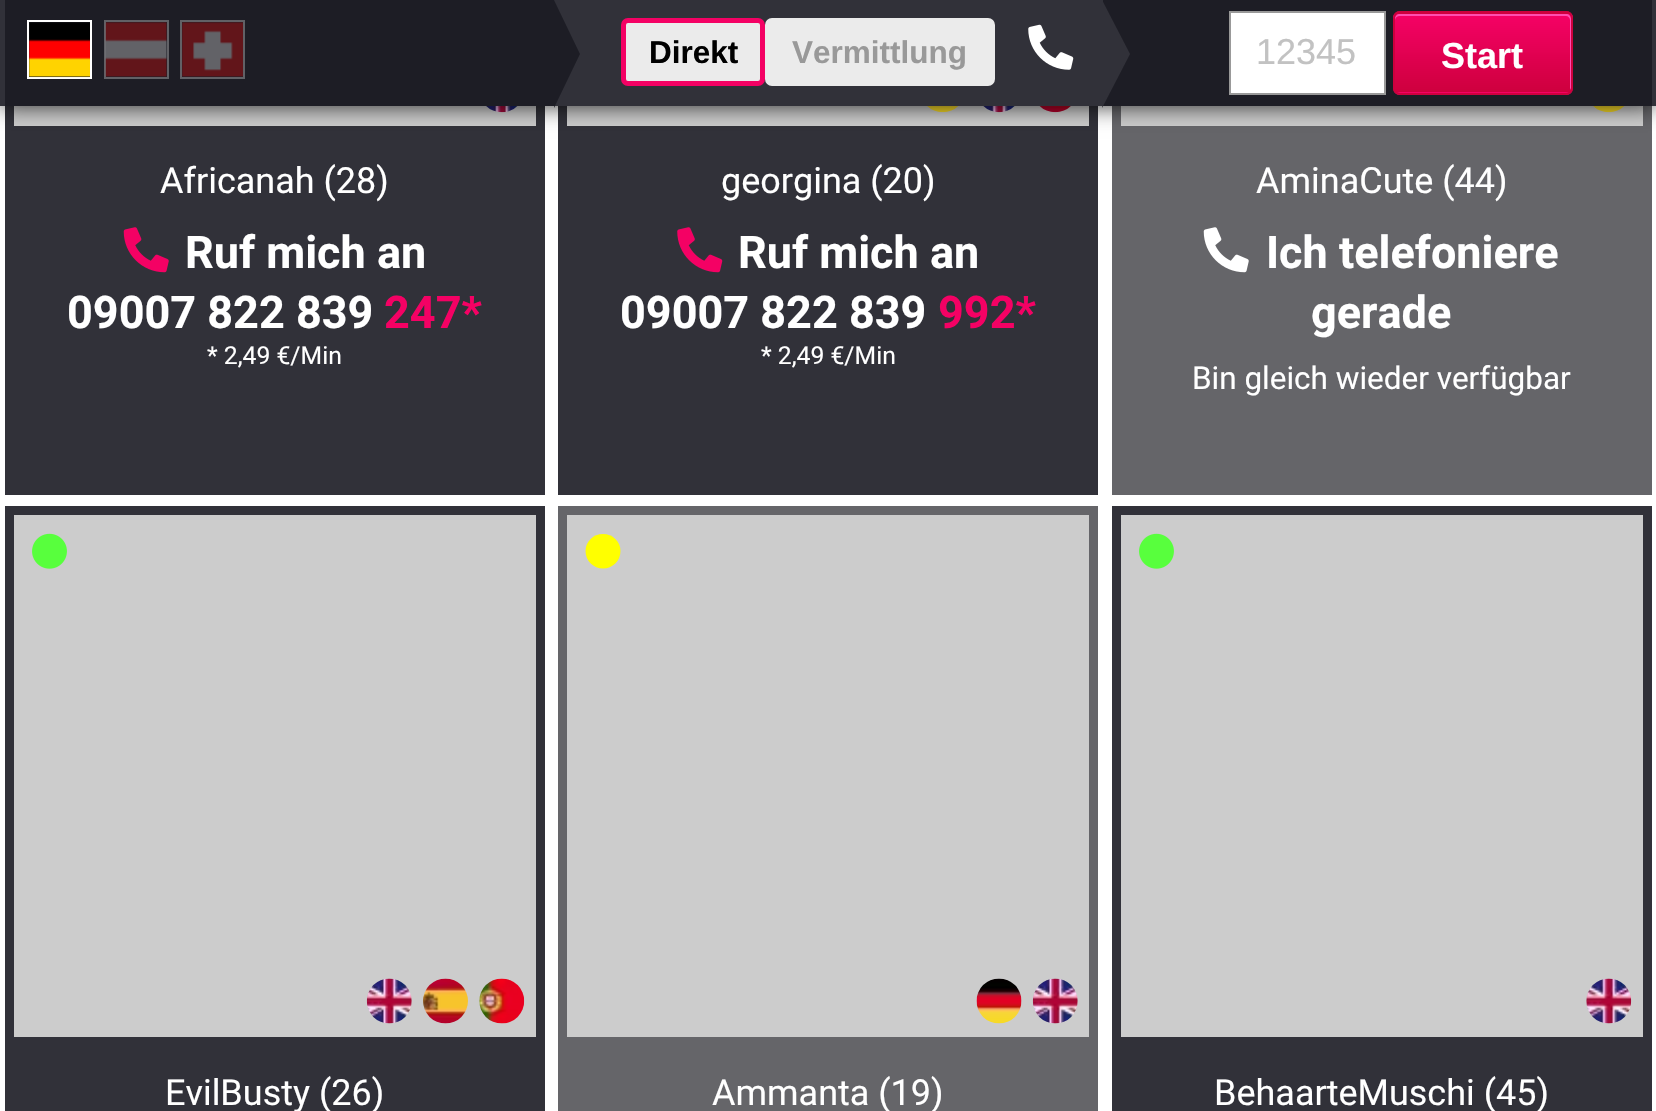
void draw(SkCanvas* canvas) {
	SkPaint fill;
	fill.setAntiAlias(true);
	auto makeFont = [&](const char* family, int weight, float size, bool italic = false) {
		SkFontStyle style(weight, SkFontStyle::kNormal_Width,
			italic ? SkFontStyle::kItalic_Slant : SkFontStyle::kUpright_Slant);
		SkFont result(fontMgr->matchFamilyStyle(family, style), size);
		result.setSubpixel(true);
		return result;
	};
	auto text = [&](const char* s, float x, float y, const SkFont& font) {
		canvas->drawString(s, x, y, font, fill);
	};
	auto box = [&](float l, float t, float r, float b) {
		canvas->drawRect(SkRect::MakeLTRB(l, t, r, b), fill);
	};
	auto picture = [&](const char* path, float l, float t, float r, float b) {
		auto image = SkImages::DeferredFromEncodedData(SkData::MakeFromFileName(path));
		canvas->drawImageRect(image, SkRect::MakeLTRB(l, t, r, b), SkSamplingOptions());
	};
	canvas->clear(0xFFFFFFFF);
	fill.setColor(0xFF313139);
	box(5, 106, 545, 495);
	fill.setColor(0xFFCCCCCC);
	box(14, 106, 536, 126);
	picture("image4.png", 486, 106, 518, 113);
	fill.setColor(0xFF313139);
	box(558, 106, 1098, 495);
	fill.setColor(0xFFCCCCCC);
	box(567, 106, 1089, 126);
	picture("image6.png", 927, 106, 959, 113);
	picture("image7.png", 983, 106, 1015, 113);
	picture("image8.png", 1039, 106, 1071, 113);
	fill.setColor(0xFF656569);
	box(1112, 106, 1652, 495);
	fill.setColor(0xFFCCCCCC);
	box(1121, 106, 1643, 126);
	picture("image6.png", 1593, 106, 1625, 113);
	fill.setColor(0xCC000000);
	fill.setMaskFilter(SkMaskFilter::MakeBlur(kNormal_SkBlurStyle, 11));
	canvas->drawRect(SkRect::MakeLTRB(0, 0, 1656, 106), fill);
	fill.setMaskFilter(nullptr);
	fill.setColor(0xFF313139);
	box(0, 0, 1656, 106);
	fill.setColor(0xFF1D1D25);
	box(5, 0, 554, 106);
	fill.setStyle(SkPaint::kStroke_Style);
	fill.setStrokeWidth(2);
	fill.setColor(0xFFFFFFFF);
	canvas->drawRect(SkRect::MakeLTRB(28, 21, 91, 78), fill);
	picture("image0.png", 29, 22, 90, 78);
	fill.setColor(0xFF616166);
	canvas->drawRect(SkRect::MakeLTRB(105, 21, 168, 78), fill);
	picture("image1.png", 105, 22, 167, 77);
	canvas->drawRect(SkRect::MakeLTRB(181, 21, 244, 78), fill);
	picture("image2.png", 182, 22, 243, 77);
	fill.setStyle(SkPaint::kFill_Style);
	fill.setColor(0xFF1D1D25);
	canvas->drawPath(SkPathBuilder().moveTo(554, 108).lineTo(554, 0).lineTo(580, 54).close().detach(), fill);
	fill.setColor(0xFFEBEBEB);
	canvas->drawRoundRect(SkRect::MakeLTRB(623.5f, 20.5f, 762.5f, 83.5f), 4.5f, 4.5f, fill);
	fill.setStyle(SkPaint::kStroke_Style);
	fill.setStrokeWidth(5);
	fill.setColor(0xFFF40164);
	canvas->drawRoundRect(SkRect::MakeLTRB(623.5f, 20.5f, 762.5f, 83.5f), 4.5f, 4.5f, fill);
	fill.setStyle(SkPaint::kFill_Style);
	fill.setColor(0xFFEBEBEB);
	canvas->drawRoundRect(SkRect::MakeLTRB(767.5f, 20.5f, 992.5f, 83.5f), 4.5f, 4.5f, fill);
	fill.setStyle(SkPaint::kStroke_Style);
	canvas->drawRoundRect(SkRect::MakeLTRB(767.5f, 20.5f, 992.5f, 83.5f), 4.5f, 4.5f, fill);
	picture("image3.png", 1028, 24, 1074, 70);
	fill.setStyle(SkPaint::kFill_Style);
	fill.setColor(0xFF1D1D25);
	box(1103, 0, 1652, 106);
	fill.setColor(0xFF313139);
	canvas->drawPath(SkPathBuilder().moveTo(1102, 108).lineTo(1102, 0).lineTo(1130, 54).close().detach(), fill);
	fill.setColor(0xFFFFFFFF);
	canvas->drawRect(SkRect::MakeLTRB(1230, 12, 1385, 94), fill);
	fill.setStyle(SkPaint::kStroke_Style);
	fill.setStrokeWidth(2);
	fill.setColor(0xFF999999);
	canvas->drawRect(SkRect::MakeLTRB(1230, 12, 1385, 94), fill);
	canvas->save();
	canvas->clipPath(SkPathBuilder().moveTo(1400, 11).lineTo(1566, 11).cubicTo(1570, 11, 1573, 14, 1573, 18).lineTo(1573, 88).cubicTo(1573, 92, 1570, 95, 1566, 95).lineTo(1400, 95).cubicTo(1396, 95, 1393, 92, 1393, 88).lineTo(1393, 18).cubicTo(1393, 14, 1396, 11, 1400, 11).close().detach(), true);
	fill.setStyle(SkPaint::kFill_Style);
	{
		const SkColor colors[] = {0xFFF40164, 0xFFCE003E};
		const float stops[] = {0.05f, 1};
		const SkPoint ends[] = {{1483, -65}, {1483, 14}};
		fill.setShader(SkGradientShader::MakeLinear(ends, colors, stops, 2, SkTileMode::kClamp));
		fill.setAlpha(255);
	}
	box(1393, 11, 1573, 14);
	{
		const SkColor colors[] = {0xFFF40164, 0xFFCE003E};
		const float stops[] = {0.05f, 1};
		const SkPoint ends[] = {{1483, 13}, {1483, 92}};
		fill.setShader(SkGradientShader::MakeLinear(ends, colors, stops, 2, SkTileMode::kClamp));
		fill.setAlpha(255);
	}
	box(1393, 14, 1573, 92);
	{
		const SkColor colors[] = {0xFFF40164, 0xFFCE003E};
		const float stops[] = {0.05f, 1};
		const SkPoint ends[] = {{1483, 92}, {1483, 171}};
		fill.setShader(SkGradientShader::MakeLinear(ends, colors, stops, 2, SkTileMode::kClamp));
		fill.setAlpha(255);
	}
	box(1393, 92, 1573, 95);
	canvas->restore();
	fill.setShader(nullptr);
	fill.setColor(0xFFFF4EB1);
	canvas->drawPath(SkPathBuilder().moveTo(1400, 16).lineTo(1566, 16).cubicTo(1568, 16, 1570, 18, 1570, 20).lineTo(1570, 90).cubicTo(1571, 89, 1571, 88, 1571, 87).lineTo(1571, 19).cubicTo(1571, 16, 1569, 14, 1566, 14).lineTo(1400, 14).cubicTo(1397, 14, 1395, 16, 1395, 19).lineTo(1395, 20).cubicTo(1395, 18, 1397, 16, 1400, 16).close().detach(), fill);
	fill.setStyle(SkPaint::kStroke_Style);
	fill.setColor(0xFFCE003E);
	canvas->drawRoundRect(SkRect::MakeLTRB(1394, 12, 1572, 94), 6, 6, fill);
	picture("image5.png", 123, 227, 169, 273);
	picture("image9.png", 677, 227, 723, 273);
	picture("image10.png", 1203, 227, 1249, 273);
	fill.setStyle(SkPaint::kFill_Style);
	fill.setColor(0xFF313139);
	box(5, 506, 545, 1111);
	fill.setColor(0xFFCCCCCC);
	box(14, 515, 536, 1037);
	picture("image11.png", 32, 533, 67, 569);
	picture("image12.png", 366, 978, 412, 1024);
	picture("image13.png", 423, 978, 468, 1024);
	picture("image14.png", 479, 978, 525, 1024);
	fill.setColor(0xFF656569);
	box(558, 506, 1098, 1111);
	fill.setColor(0xFFCCCCCC);
	box(567, 515, 1089, 1037);
	fill.setColor(0xFFFFFF00);
	canvas->drawPath(SkPathBuilder().moveTo(603, 534).cubicTo(593.5f, 534, 585.5f, 541.5f, 585.5f, 551).cubicTo(585.5f, 561, 593.5f, 568.5f, 603, 568.5f).cubicTo(612.5f, 568.5f, 620.5f, 561, 620.5f, 551).cubicTo(620.5f, 541.5f, 612.5f, 534, 603, 534).close().detach(), fill);
	picture("image15.png", 976, 978, 1022, 1024);
	picture("image12.png", 1032, 978, 1078, 1024);
	fill.setColor(0xFF313139);
	box(1112, 506, 1652, 1111);
	fill.setColor(0xFFCCCCCC);
	box(1121, 515, 1643, 1037);
	picture("image11.png", 1139, 533, 1174, 569);
	picture("image16.png", 1586, 978, 1632, 1024);
	auto font1 = makeFont("Liberation Sans", 700, 31.5f);
	fill.setColor(0xFF000000);
	text("Direkt", 649, 63, font1);
	fill.setColor(0xFF999999);
	text("Vermittlung", 792, 63, font1);
	auto font2 = makeFont("Liberation Sans", 400, 36);
	fill.setColor(0xFFC2C2C2);
	text("12345", 1256, 64, font2);
	auto font3 = makeFont("Liberation Sans", 700, 36);
	fill.setColor(0xFFFFFFFF);
	text("Start", 1441, 68, font3);
	auto font4 = makeFont("Roboto", 400, 36);
	text("Africanah (28)", 160, 193, font4);
	auto font5 = makeFont("Roboto", 700, 45);
	text("Ruf mich an", 185, 268, font5);
	text("09007 822 839", 67, 328, font5);
	fill.setColor(0xFFF40164);
	text("247*", 384, 328, font5);
	auto font6 = makeFont("Roboto", 400, 24.75f);
	fill.setColor(0xFFFFFFFF);
	text("* 2,49 €/Min", 207, 364, font6);
	text("georgina (20)", 721, 193, font4);
	text("Ruf mich an", 738, 268, font5);
	text("09007 822 839", 620, 328, font5);
	fill.setColor(0xFFF40164);
	text("992*", 938, 328, font5);
	fill.setColor(0xFFFFFFFF);
	text("* 2,49 €/Min", 761, 364, font6);
	text("AminaCute (44)", 1256, 193, font4);
	text("Ich telefoniere", 1266, 268, font5);
	text("gerade", 1311, 328, font5);
	auto font7 = makeFont("Roboto", 400, 31.5f);
	text("Bin gleich wieder verfügbar", 1192, 389, font7);
	text("EvilBusty (26)", 165, 1105, font4);
	text("Ammanta (19)", 712, 1105, font4);
	text("BehaarteMuschi (45)", 1214, 1105, font4);
}
